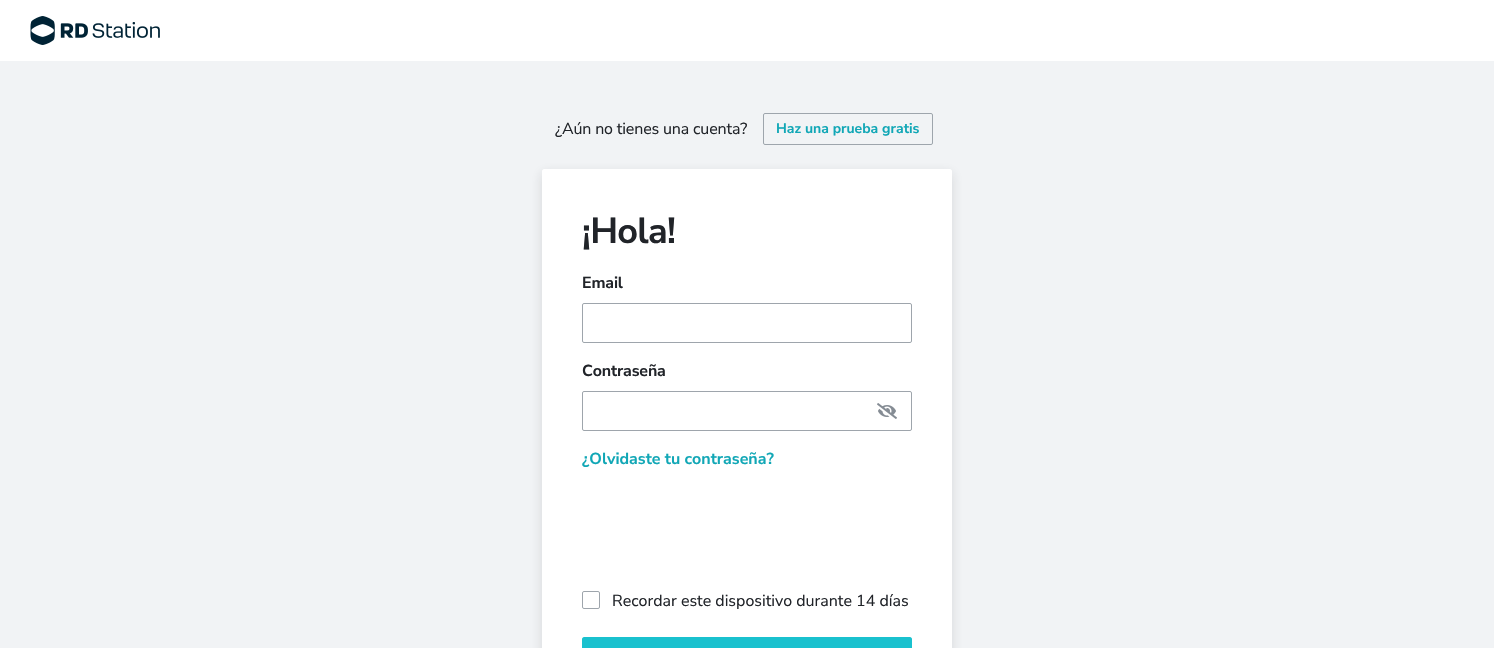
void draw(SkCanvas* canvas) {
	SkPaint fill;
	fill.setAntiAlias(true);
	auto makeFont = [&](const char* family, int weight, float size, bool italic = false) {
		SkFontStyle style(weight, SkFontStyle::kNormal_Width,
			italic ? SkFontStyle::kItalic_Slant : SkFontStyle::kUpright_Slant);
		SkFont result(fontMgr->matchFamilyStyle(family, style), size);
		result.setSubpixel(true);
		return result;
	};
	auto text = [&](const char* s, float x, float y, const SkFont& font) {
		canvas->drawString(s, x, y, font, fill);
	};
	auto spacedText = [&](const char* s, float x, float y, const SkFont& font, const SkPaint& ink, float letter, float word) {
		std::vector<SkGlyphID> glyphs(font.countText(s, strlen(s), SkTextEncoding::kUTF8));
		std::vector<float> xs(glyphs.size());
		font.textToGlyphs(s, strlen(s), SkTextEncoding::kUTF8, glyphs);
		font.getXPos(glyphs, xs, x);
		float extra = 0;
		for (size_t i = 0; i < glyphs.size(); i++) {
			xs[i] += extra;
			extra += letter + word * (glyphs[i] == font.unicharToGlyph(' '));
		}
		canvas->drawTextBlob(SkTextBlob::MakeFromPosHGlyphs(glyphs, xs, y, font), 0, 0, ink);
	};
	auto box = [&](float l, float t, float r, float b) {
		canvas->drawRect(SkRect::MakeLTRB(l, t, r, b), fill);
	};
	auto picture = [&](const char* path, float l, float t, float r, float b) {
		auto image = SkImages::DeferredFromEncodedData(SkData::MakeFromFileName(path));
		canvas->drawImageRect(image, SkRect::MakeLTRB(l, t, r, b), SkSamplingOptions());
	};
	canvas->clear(0xFFFFFFFF);
	picture("image0.png", 30, 16, 160, 45);
	fill.setColor(0xFFF1F3F5);
	box(0, 61, 1494, 648);
	fill.setStyle(SkPaint::kStroke_Style);
	fill.setStrokeWidth(1);
	fill.setColor(0xFF9EA5AC);
	canvas->drawRoundRect(SkRect::MakeLTRB(763.5f, 113.5f, 932.5f, 144.5f), 1.5f, 1.5f, fill);
	fill.setStyle(SkPaint::kFill_Style);
	fill.setColor(0x24212429);
	fill.setMaskFilter(SkMaskFilter::MakeBlur(kNormal_SkBlurStyle, 6));
	canvas->drawRoundRect(SkRect::MakeLTRB(542, 173, 952, 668), 2, 2, fill);
	fill.setMaskFilter(nullptr);
	fill.setColor(0xFFFFFFFF);
	canvas->drawPath(SkPathBuilder().moveTo(544, 169).lineTo(950, 169).cubicTo(951, 169, 952, 170, 952, 171).lineTo(952, 648).lineTo(542, 648).lineTo(542, 171).cubicTo(542, 170, 543, 169, 544, 169).close().detach(), fill);
	fill.setStyle(SkPaint::kStroke_Style);
	fill.setColor(0xFF9EA5AC);
	canvas->drawRoundRect(SkRect::MakeLTRB(582.5f, 303.5f, 911.5f, 342.5f), 1.5f, 1.5f, fill);
	canvas->drawRoundRect(SkRect::MakeLTRB(582.5f, 391.5f, 911.5f, 430.5f), 1.5f, 1.5f, fill);
	picture("image1.png", 877, 403, 897, 419);
	canvas->drawRoundRect(SkRect::MakeLTRB(582.5f, 591.5f, 599.5f, 608.5f), 1.5f, 1.5f, fill);
	fill.setStyle(SkPaint::kFill_Style);
	fill.setColor(0xFF19C1CE);
	canvas->drawPath(SkPathBuilder().moveTo(584, 637).lineTo(910, 637).cubicTo(911, 637, 912, 638, 912, 639).lineTo(912, 648).lineTo(582, 648).lineTo(582, 639).cubicTo(582, 638, 583, 637, 584, 637).close().detach(), fill);
	auto font1 = makeFont("Nunito Sans", 400, 16);
	fill.setColor(0xFF212429);
	spacedText("¿Aún no tienes una cuenta?", 555, 134, font1, fill, -0.15f, 0);
	auto font2 = makeFont("Nunito Sans", 700, 14);
	fill.setColor(0xFF11A7B6);
	text("Haz una prueba gratis", 776, 133, font2);
	auto font3 = makeFont("Nunito Sans", 700, 36);
	fill.setColor(0xFF212429);
	spacedText("¡Hola!", 582, 243, font3, fill, -0.75f, 0);
	auto font4 = makeFont("Nunito Sans", 700, 16);
	spacedText("Email", 582, 288, font4, fill, -0.15f, 0);
	spacedText("Contraseña", 582, 376, font4, fill, -0.15f, 0);
	fill.setColor(0xFF11A7B6);
	text("¿Olvidaste tu contraseña?", 582, 464, font4);
	fill.setColor(0xFF212429);
	text("Recordar este dispositivo durante 14 días", 612, 606, font1);
}
